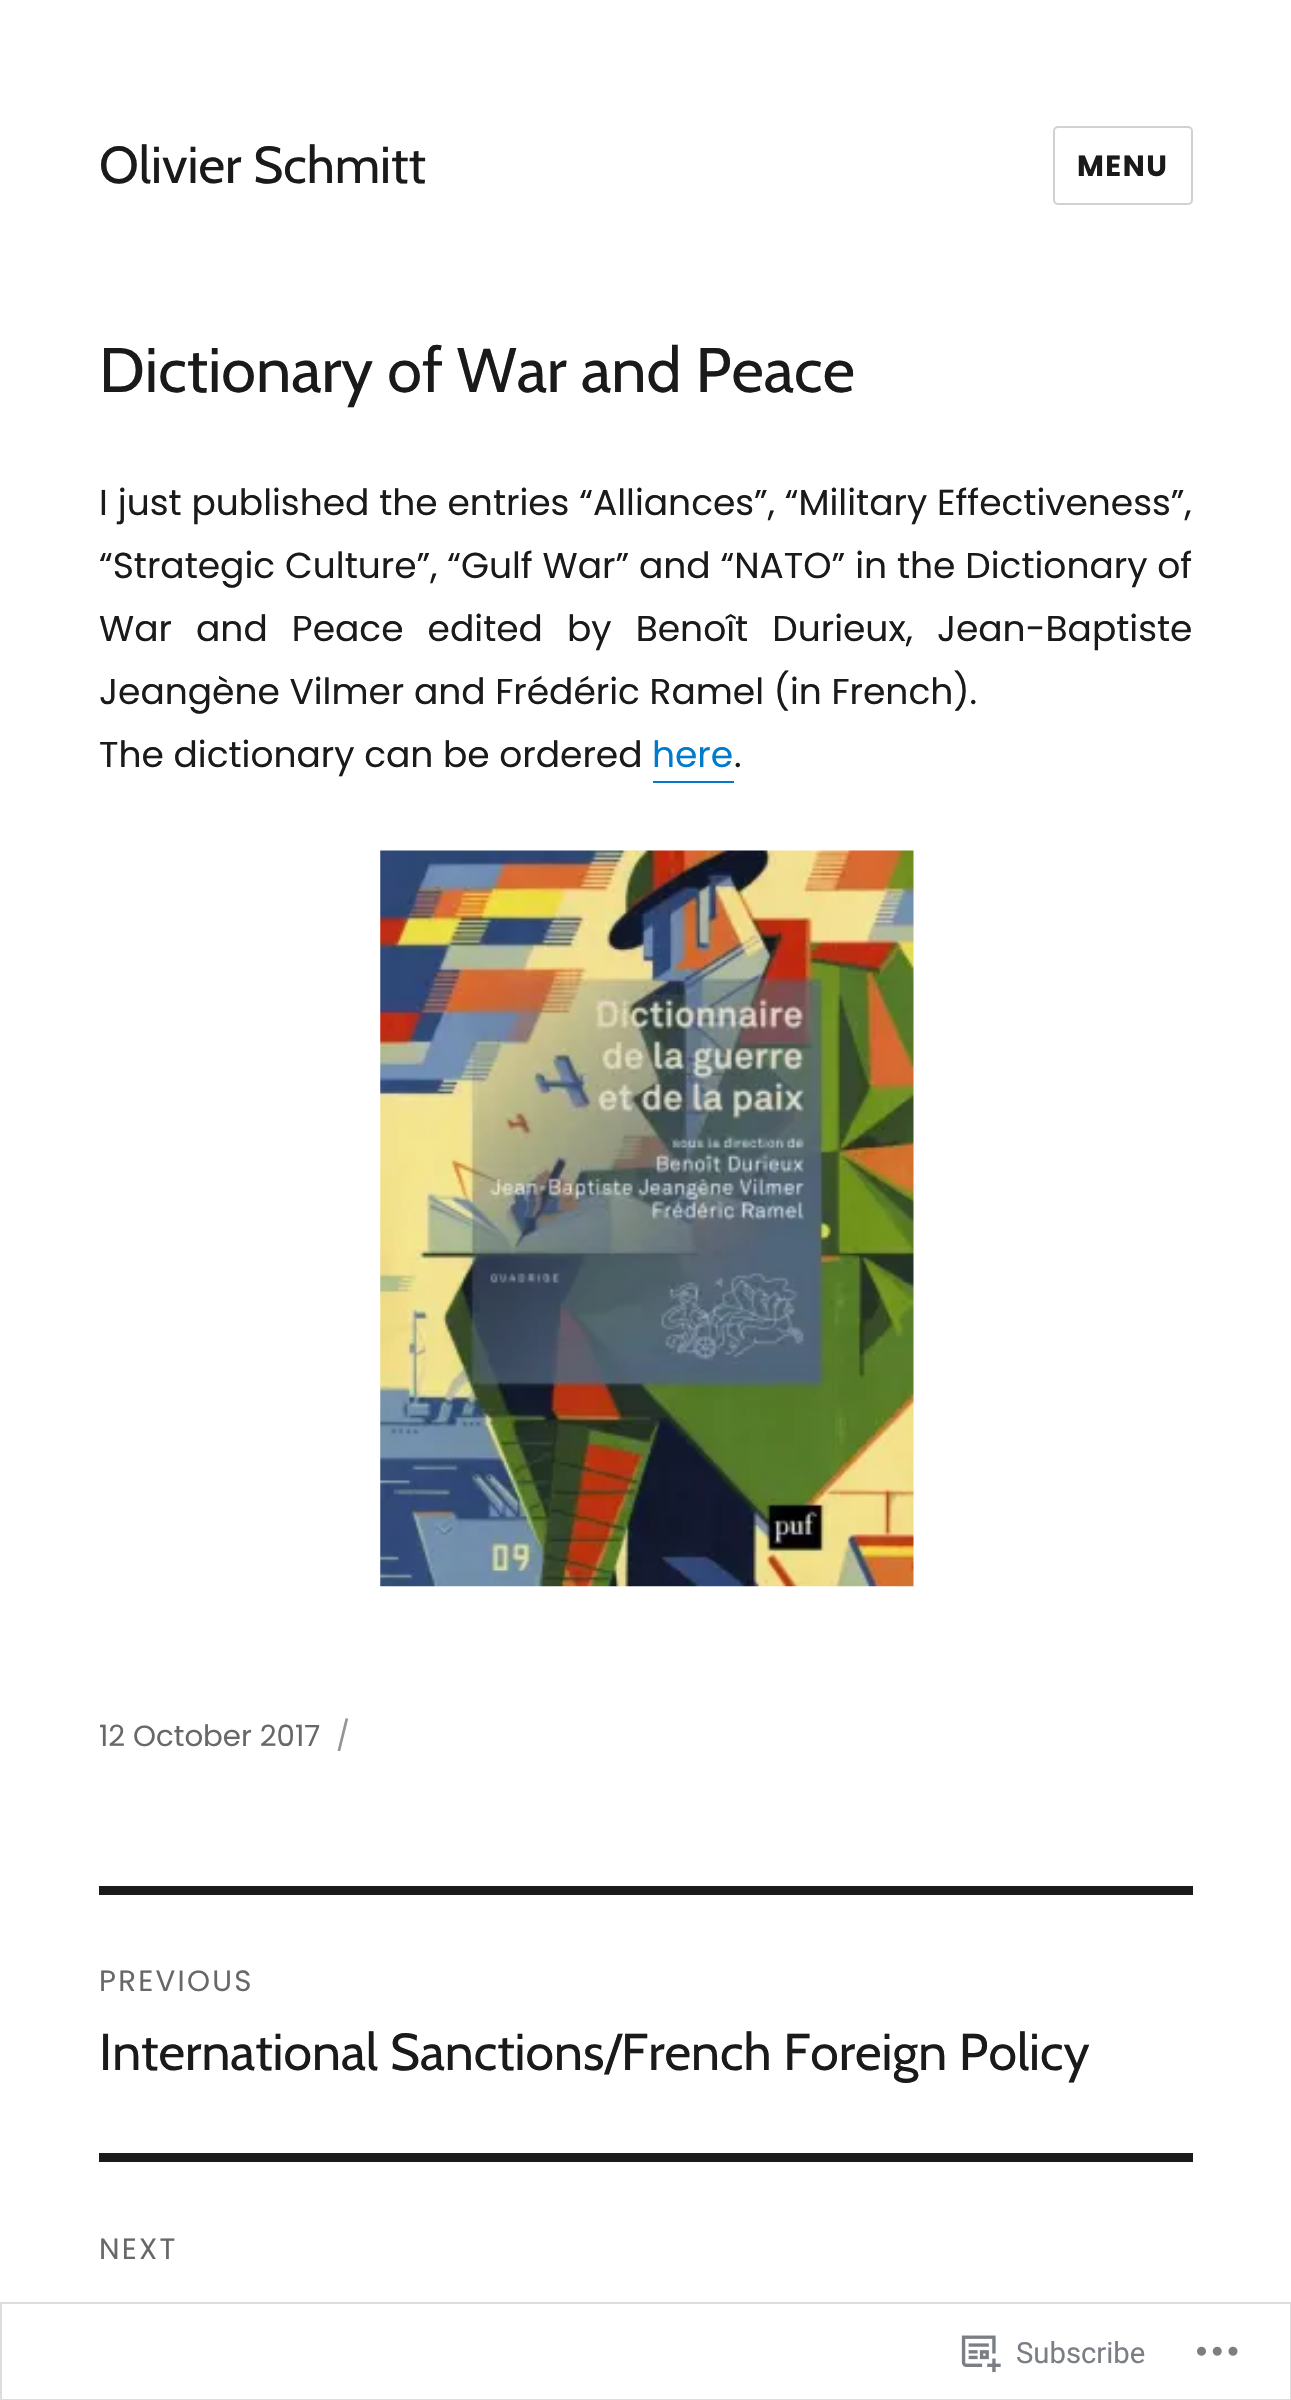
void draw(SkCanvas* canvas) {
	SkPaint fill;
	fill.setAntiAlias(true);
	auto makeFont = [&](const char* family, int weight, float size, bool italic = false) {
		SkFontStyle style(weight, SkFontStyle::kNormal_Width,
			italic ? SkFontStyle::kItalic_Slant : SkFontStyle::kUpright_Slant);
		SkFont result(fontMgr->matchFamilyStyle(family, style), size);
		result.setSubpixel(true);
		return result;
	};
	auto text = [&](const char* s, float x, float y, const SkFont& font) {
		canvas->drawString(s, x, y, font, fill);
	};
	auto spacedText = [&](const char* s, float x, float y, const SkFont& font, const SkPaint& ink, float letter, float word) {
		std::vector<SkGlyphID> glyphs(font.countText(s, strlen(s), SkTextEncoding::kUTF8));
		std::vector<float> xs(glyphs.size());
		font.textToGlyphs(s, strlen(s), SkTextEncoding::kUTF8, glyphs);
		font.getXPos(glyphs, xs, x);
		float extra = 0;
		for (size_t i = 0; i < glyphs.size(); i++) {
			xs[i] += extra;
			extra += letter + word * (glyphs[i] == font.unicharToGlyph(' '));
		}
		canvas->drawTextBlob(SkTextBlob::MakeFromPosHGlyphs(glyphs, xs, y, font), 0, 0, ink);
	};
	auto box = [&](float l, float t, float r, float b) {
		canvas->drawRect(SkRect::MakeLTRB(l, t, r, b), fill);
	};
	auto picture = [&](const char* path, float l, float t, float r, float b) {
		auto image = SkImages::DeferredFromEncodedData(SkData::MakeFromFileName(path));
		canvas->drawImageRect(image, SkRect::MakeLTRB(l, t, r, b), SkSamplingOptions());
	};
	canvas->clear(0xFFFFFFFF);
	fill.setStyle(SkPaint::kStroke_Style);
	fill.setStrokeWidth(2);
	fill.setColor(0xFFD1D1D1);
	canvas->drawRoundRect(SkRect::MakeLTRB(1054, 127, 1192, 204), 4, 4, fill);
	fill.setStyle(SkPaint::kFill_Style);
	fill.setColor(0xFF007ACC);
	canvas->drawPath(SkPathBuilder().moveTo(653, 781).lineTo(653, 783).lineTo(734, 783).lineTo(734, 731).lineTo(734, 781).close().detach(), fill);
	picture("image0.png", 380, 850, 914, 1587);
	fill.setColor(0xFF1A1A1A);
	box(99, 1886, 1193, 1895);
	box(99, 2153, 1193, 2162);
	fill.setStyle(SkPaint::kStroke_Style);
	fill.setColor(0xFADCDCDE);
	canvas->drawRect(SkRect::MakeLTRB(1, 2303, 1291, 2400), fill);
	picture("image1.png", 961, 2335, 1001, 2373);
	picture("image2.png", 1197, 2346, 1238, 2356);
	auto font1 = makeFont("Cabin", 400, 51.75f);
	fill.setStyle(SkPaint::kFill_Style);
	fill.setColor(0xFF1A1A1A);
	text("Olivier Schmitt", 99, 183, font1);
	auto font2 = makeFont("Poppins", 700, 29.25f);
	spacedText("MENU", 1077, 176, font2, fill, 1.5f, 0);
	auto font3 = makeFont("Cabin", 400, 63);
	text("Dictionary of War and Peace", 99, 392, font3);
	auto font4 = makeFont("Poppins", 400, 36);
	spacedText("I just published the entries “Alliances”, “Military Effectiveness”,", 99, 515, font4, fill, 0, 0.25f);
	spacedText("“Strategic Culture”, “Gulf War” and “NATO” in the Dictionary of", 99, 578, font4, fill, 0, 0.25f);
	spacedText("War and Peace edited by Benoît Durieux, Jean-Baptiste", 99, 641, font4, fill, 0, 14.5f);
	text("Jeangène Vilmer and Frédéric Ramel (in French).", 99, 704, font4);
	text("The dictionary can be ordered", 99, 767, font4);
	fill.setColor(0xFF007ACC);
	text("here", 652, 767, font4);
	fill.setColor(0xFF1A1A1A);
	text(".", 734, 767, font4);
	auto font5 = makeFont("Poppins", 400, 29.25f);
	fill.setColor(0xFF686868);
	text("12 October 2017", 99, 1746, font5);
	fill.setColor(0xFF959595);
	text("/", 336, 1746, font5);
	fill.setColor(0xFF686868);
	spacedText("PREVIOUS", 99, 1991, font5, fill, 2.25f, 0);
	fill.setColor(0xFF1A1A1A);
	text("International Sanctions/French Foreign Policy", 99, 2070, font1);
	fill.setColor(0xFF686868);
	spacedText("NEXT", 99, 2259, font5, fill, 2.25f, 0);
	auto font6 = makeFont("Roboto", 400, 29.25f);
	fill.setColor(0xFF7B7F85);
	text("Subscribe", 1016, 2363, font6);
}
